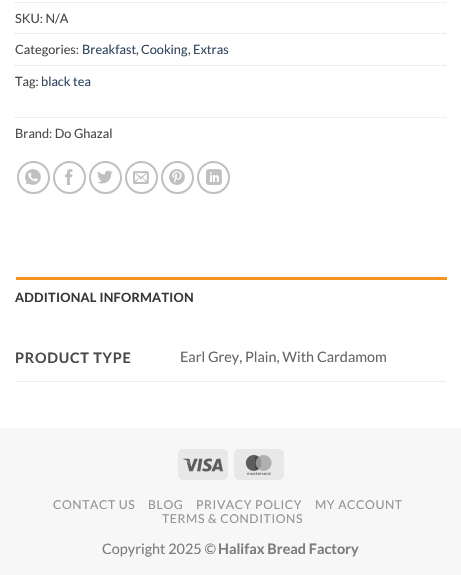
void draw(SkCanvas* canvas) {
	SkPaint fill;
	fill.setAntiAlias(true);
	auto makeFont = [&](const char* family, int weight, float size, bool italic = false) {
		SkFontStyle style(weight, SkFontStyle::kNormal_Width,
			italic ? SkFontStyle::kItalic_Slant : SkFontStyle::kUpright_Slant);
		SkFont result(fontMgr->matchFamilyStyle(family, style), size);
		result.setSubpixel(true);
		return result;
	};
	auto text = [&](const char* s, float x, float y, const SkFont& font) {
		canvas->drawString(s, x, y, font, fill);
	};
	auto spacedText = [&](const char* s, float x, float y, const SkFont& font, const SkPaint& ink, float letter, float word) {
		std::vector<SkGlyphID> glyphs(font.countText(s, strlen(s), SkTextEncoding::kUTF8));
		std::vector<float> xs(glyphs.size());
		font.textToGlyphs(s, strlen(s), SkTextEncoding::kUTF8, glyphs);
		font.getXPos(glyphs, xs, x);
		float extra = 0;
		for (size_t i = 0; i < glyphs.size(); i++) {
			xs[i] += extra;
			extra += letter + word * (glyphs[i] == font.unicharToGlyph(' '));
		}
		canvas->drawTextBlob(SkTextBlob::MakeFromPosHGlyphs(glyphs, xs, y, font), 0, 0, ink);
	};
	auto box = [&](float l, float t, float r, float b) {
		canvas->drawRect(SkRect::MakeLTRB(l, t, r, b), fill);
	};
	auto roundBox = [&](float l, float t, float r, float b, float radius) {
		canvas->drawRoundRect(SkRect::MakeLTRB(l, t, r, b), radius, radius, fill);
	};
	auto picture = [&](const char* path, float l, float t, float r, float b) {
		auto image = SkImages::DeferredFromEncodedData(SkData::MakeFromFileName(path));
		canvas->drawImageRect(image, SkRect::MakeLTRB(l, t, r, b), SkSamplingOptions());
	};
	canvas->clear(0xFFFFFFFF);
	fill.setStyle(SkPaint::kStroke_Style);
	fill.setStrokeWidth(1);
	fill.setColor(0xFFDDDDDD);
	fill.setPathEffect(SkDashPathEffect::Make({{1, 1}}, 0));
	canvas->drawPath(SkPathBuilder().moveTo(15, 2.5f).lineTo(446, 2.5f).detach(), fill);
	fill.setPathEffect(nullptr);
	fill.setPathEffect(SkDashPathEffect::Make({{1, 1}}, 0));
	canvas->drawPath(SkPathBuilder().moveTo(15, 33.5f).lineTo(446, 33.5f).detach(), fill);
	fill.setPathEffect(nullptr);
	fill.setPathEffect(SkDashPathEffect::Make({{1, 1}}, 0));
	canvas->drawPath(SkPathBuilder().moveTo(15, 65.5f).lineTo(446, 65.5f).detach(), fill);
	fill.setPathEffect(nullptr);
	fill.setPathEffect(SkDashPathEffect::Make({{1, 1}}, 0));
	canvas->drawPath(SkPathBuilder().moveTo(15, 117.5f).lineTo(446, 117.5f).detach(), fill);
	fill.setPathEffect(nullptr);
	fill.setStrokeWidth(2);
	fill.setColor(0xFFC0C0C0);
	canvas->drawCircle(33.5f, 177.5f, 15.5f, fill);
	picture("image0.png", 25, 169, 41, 185);
	canvas->drawCircle(69.5f, 177.5f, 15.5f, fill);
	picture("image1.png", 65, 169, 73, 185);
	canvas->drawCircle(105.5f, 177.5f, 15.5f, fill);
	picture("image2.png", 97, 170, 113, 184);
	canvas->drawCircle(141.5f, 177.5f, 15.5f, fill);
	picture("image3.png", 133, 171, 149, 184);
	canvas->drawCircle(177.5f, 177.5f, 15.5f, fill);
	picture("image4.png", 169, 169, 185, 185);
	canvas->drawCircle(213.5f, 177.5f, 15.5f, fill);
	picture("image5.png", 206, 169, 222, 185);
	fill.setStyle(SkPaint::kFill_Style);
	fill.setColor(0xFFECECEC);
	box(15, 277, 16, 278);
	fill.setColor(0xFFF6941F);
	box(16, 277, 447, 280);
	fill.setColor(0xFFECECEC);
	box(15, 381, 446, 382);
	fill.setColor(0xFFF7F7F7);
	box(0, 428, 461, 575);
	fill.setColor(0xFFE8E8E8);
	roundBox(178, 449, 228, 480, 5);
	picture("image6.png", 183, 458, 223, 472);
	roundBox(234, 449, 284, 480, 5);
	picture("image7.png", 245, 455, 272, 475);
	auto font1 = makeFont("Lato", 400, 12.75f);
	fill.setColor(0xFF4A4A4A);
	text("SKU: N/A", 15, 23, font1);
	text("Categories:", 15, 54, font1);
	fill.setColor(0xFF334862);
	text("Breakfast", 82, 54, font1);
	fill.setColor(0xFF4A4A4A);
	text(",", 136, 54, font1);
	fill.setColor(0xFF334862);
	text("Cooking", 141, 54, font1);
	fill.setColor(0xFF4A4A4A);
	text(",", 188, 54, font1);
	fill.setColor(0xFF334862);
	text("Extras", 193, 54, font1);
	fill.setColor(0xFF4A4A4A);
	text("Tag:", 15, 86, font1);
	fill.setColor(0xFF334862);
	text("black tea", 41, 86, font1);
	fill.setColor(0xFF4A4A4A);
	text("Brand: Do Ghazal", 15, 138, font1);
	auto font2 = makeFont("Lato", 700, 12.75f);
	fill.setColor(0xFF363636);
	spacedText("ADDITIONAL INFORMATION", 15, 302, font2, fill, 0.25f, 0);
	auto font3 = makeFont("Lato", 700, 14.4f);
	fill.setColor(0xFF4A4A4A);
	spacedText("PRODUCT TYPE", 15, 363, font3, fill, 0.75f, 0);
	auto font4 = makeFont("Lato", 400, 14.4f);
	fill.setColor(0xFF666666);
	text("Earl Grey, Plain, With Cardamom", 180, 362, font4);
	auto font5 = makeFont("Lato", 400, 12.25f);
	fill.setColor(0xFF949494);
	spacedText("CONTACT US", 53, 509, font5, fill, 0.6f, 0);
	spacedText("BLOG", 148, 509, font5, fill, 0.6f, 0);
	spacedText("PRIVACY POLICY", 196, 509, font5, fill, 0.6f, 0);
	spacedText("MY ACCOUNT", 315, 509, font5, fill, 0.6f, 0);
	spacedText("TERMS & CONDITIONS", 162, 523, font5, fill, 0.6f, 0);
	fill.setColor(0xFF7C7C7C);
	text("Copyright 2025 ©", 102, 554, font4);
	text("Halifax Bread Factory", 218, 554, font3);
}
